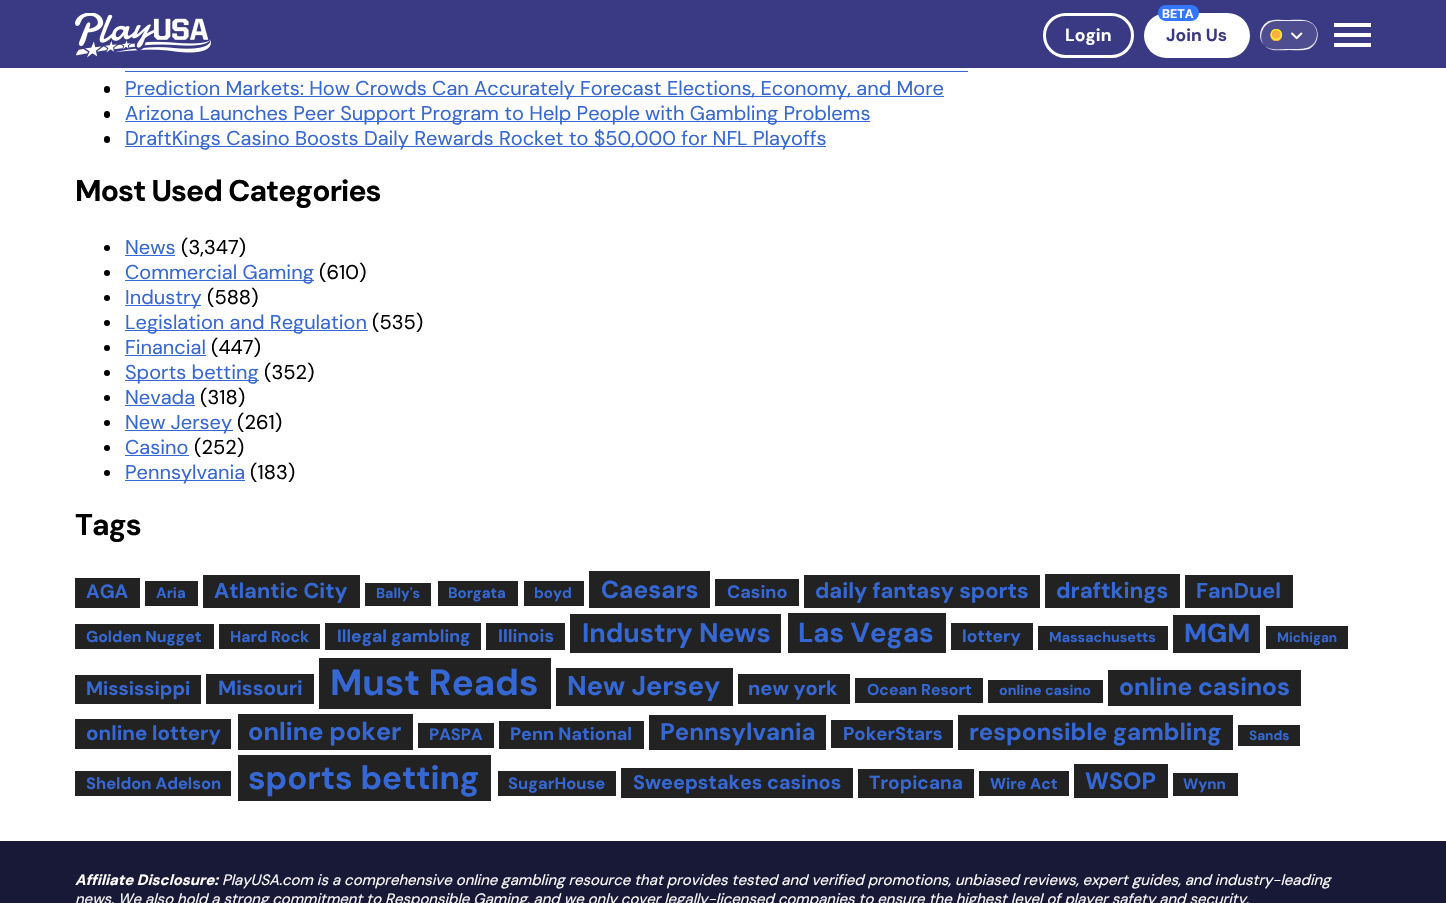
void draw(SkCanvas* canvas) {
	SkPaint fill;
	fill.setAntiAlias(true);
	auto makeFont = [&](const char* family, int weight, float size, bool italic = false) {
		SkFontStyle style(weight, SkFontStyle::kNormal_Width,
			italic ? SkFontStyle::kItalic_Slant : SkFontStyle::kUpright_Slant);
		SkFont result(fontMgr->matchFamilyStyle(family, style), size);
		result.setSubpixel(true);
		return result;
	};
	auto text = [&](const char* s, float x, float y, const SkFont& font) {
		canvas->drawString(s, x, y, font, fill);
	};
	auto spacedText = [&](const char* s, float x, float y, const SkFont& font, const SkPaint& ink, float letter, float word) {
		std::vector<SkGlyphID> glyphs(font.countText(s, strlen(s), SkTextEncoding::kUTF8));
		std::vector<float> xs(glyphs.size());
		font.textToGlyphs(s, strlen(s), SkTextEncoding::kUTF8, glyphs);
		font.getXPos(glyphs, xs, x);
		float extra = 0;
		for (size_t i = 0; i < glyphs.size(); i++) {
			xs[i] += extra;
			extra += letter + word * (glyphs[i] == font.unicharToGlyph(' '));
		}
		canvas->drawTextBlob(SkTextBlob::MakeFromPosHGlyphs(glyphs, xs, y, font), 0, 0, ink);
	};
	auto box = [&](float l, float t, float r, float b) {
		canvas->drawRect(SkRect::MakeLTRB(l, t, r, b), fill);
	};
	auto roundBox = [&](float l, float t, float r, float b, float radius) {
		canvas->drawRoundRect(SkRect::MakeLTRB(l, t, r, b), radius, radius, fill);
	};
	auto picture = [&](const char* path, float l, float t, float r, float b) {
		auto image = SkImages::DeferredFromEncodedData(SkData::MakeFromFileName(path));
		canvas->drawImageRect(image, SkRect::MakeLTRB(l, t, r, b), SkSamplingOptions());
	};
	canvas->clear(0xFFFFFFFF);
	fill.setColor(0xFF3A3984);
	box(0, 0, 1446, 68);
	picture("image0.png", 75, 13, 211, 58);
	fill.setStyle(SkPaint::kStroke_Style);
	fill.setStrokeWidth(3);
	fill.setColor(0xFFFFFFFF);
	canvas->drawRoundRect(SkRect::MakeLTRB(1044.5f, 14.5f, 1132.5f, 56.5f), 21, 21, fill);
	fill.setStyle(SkPaint::kFill_Style);
	roundBox(1144, 13, 1250, 58, 22.5f);
	fill.setColor(0xFF3377FF);
	roundBox(1158, 5, 1199, 21, 8);
	fill.setColor(0xFF4E4D90);
	roundBox(1260, 20, 1318, 50, 15);
	picture("image1.png", 1270, 29, 1282, 41);
	picture("image2.png", 1291, 32, 1303, 40);
	fill.setColor(0xE6FFFFFF);
	canvas->drawPath(SkPathBuilder().moveTo(1265, 46).cubicTo(1271, 52, 1281, 50, 1289, 50).cubicTo(1295, 50, 1303, 51, 1309, 49).cubicTo(1319, 44, 1321, 30, 1312, 23).cubicTo(1315, 26, 1317, 30, 1317, 34).cubicTo(1316, 51, 1300, 49, 1288, 49).cubicTo(1281, 49, 1271, 51, 1265, 46).close().detach(), fill);
	canvas->drawPath(SkPathBuilder().moveTo(1276, 21).lineTo(1304, 21).cubicTo(1308, 21, 1312, 23, 1315, 26).cubicTo(1309, 18, 1298, 20, 1289, 20).cubicTo(1283, 20, 1275, 19, 1269, 21).cubicTo(1260, 25, 1257, 38, 1264, 45).cubicTo(1257, 36, 1264, 21, 1276, 21).close().detach(), fill);
	fill.setColor(0xFFFFFFFF);
	box(1334, 23, 1371, 27);
	box(1334, 33, 1371, 37);
	box(1334, 43, 1371, 47);
	fill.setColor(0xFF3568D4);
	box(125, 71, 968, 72);
	fill.setColor(0xFF000000);
	roundBox(104, 86, 110, 93, 3);
	fill.setColor(0xFF3568D4);
	box(125, 96, 944, 97);
	fill.setColor(0xFF000000);
	roundBox(104, 111, 110, 118, 3);
	fill.setColor(0xFF3568D4);
	box(125, 121, 870, 122);
	fill.setColor(0xFF000000);
	roundBox(104, 136, 110, 143, 3);
	fill.setColor(0xFF3568D4);
	box(125, 146, 826, 147);
	fill.setColor(0xFF000000);
	canvas->drawCircle(107, 248, 3, fill);
	fill.setColor(0xFF3568D4);
	box(125, 255, 175, 256);
	fill.setColor(0xFF000000);
	canvas->drawCircle(107, 273, 3, fill);
	fill.setColor(0xFF3568D4);
	box(125, 280, 314, 281);
	fill.setColor(0xFF000000);
	canvas->drawCircle(107, 298, 3, fill);
	fill.setColor(0xFF3568D4);
	box(125, 305, 201, 306);
	fill.setColor(0xFF000000);
	canvas->drawCircle(107, 323, 3, fill);
	fill.setColor(0xFF3568D4);
	box(125, 330, 368, 331);
	fill.setColor(0xFF000000);
	canvas->drawCircle(107, 348, 3, fill);
	fill.setColor(0xFF3568D4);
	box(125, 355, 206, 356);
	fill.setColor(0xFF000000);
	canvas->drawCircle(107, 373, 3, fill);
	fill.setColor(0xFF3568D4);
	box(125, 380, 259, 381);
	fill.setColor(0xFF000000);
	canvas->drawCircle(107, 398, 3, fill);
	fill.setColor(0xFF3568D4);
	box(125, 405, 195, 406);
	fill.setColor(0xFF000000);
	canvas->drawCircle(107, 423, 3, fill);
	fill.setColor(0xFF3568D4);
	box(125, 430, 233, 431);
	fill.setColor(0xFF000000);
	canvas->drawCircle(107, 448, 3, fill);
	fill.setColor(0xFF3568D4);
	box(125, 455, 189, 456);
	fill.setColor(0xFF000000);
	canvas->drawCircle(107, 473, 3, fill);
	fill.setColor(0xFF3568D4);
	box(125, 480, 245, 481);
	fill.setColor(0xFF222222);
	box(75, 578, 140, 608);
	box(145, 581, 198, 606);
	box(203, 575, 360, 608);
	box(365, 583, 431, 606);
	box(438, 581, 518, 606);
	box(524, 581, 584, 606);
	box(589, 571, 710, 608);
	box(715, 579, 799, 606);
	box(804, 575, 1040, 608);
	box(1045, 574, 1180, 608);
	box(1185, 575, 1293, 608);
	box(75, 624, 214, 649);
	box(219, 624, 320, 649);
	box(325, 623, 481, 650);
	box(486, 623, 565, 650);
	box(570, 614, 781, 653);
	box(788, 613, 946, 653);
	box(951, 623, 1033, 650);
	box(1038, 626, 1168, 650);
	box(1173, 615, 1260, 653);
	box(1266, 626, 1348, 649);
	box(75, 675, 201, 704);
	box(206, 674, 314, 704);
	box(319, 658, 551, 709);
	box(556, 668, 733, 706);
	box(738, 674, 850, 704);
	box(855, 678, 983, 703);
	box(988, 680, 1103, 703);
	box(1108, 670, 1301, 706);
	box(75, 719, 231, 749);
	box(238, 714, 413, 750);
	box(418, 723, 494, 748);
	box(499, 721, 644, 749);
	box(649, 715, 826, 750);
	box(831, 720, 953, 748);
	box(958, 715, 1233, 750);
	box(1238, 725, 1300, 746);
	box(75, 771, 231, 796);
	box(238, 755, 491, 801);
	box(498, 771, 616, 796);
	box(621, 768, 853, 798);
	box(858, 769, 974, 798);
	box(979, 771, 1069, 796);
	box(1074, 764, 1168, 798);
	box(1173, 773, 1238, 796);
	fill.setColor(0xFF181837);
	box(0, 841, 1446, 903);
	auto font1 = makeFont("DM Sans", 700, 17.5f);
	fill.setColor(0xFFFFFFFF);
	text("Login", 1065, 41, font1);
	auto font2 = makeFont("DM Sans", 700, 12.5f);
	text("BETA", 1162, 18, font2);
	fill.setColor(0xFF3A3984);
	text("Join Us", 1166, 41, font1);
	auto font3 = makeFont("DM Sans", 400, 20);
	fill.setColor(0xFF3568D4);
	text("Prediction Markets: How Crowds Can Accurately Forecast Elections, Economy, and More", 125, 95, font3);
	text("Arizona Launches Peer Support Program to Help People with Gambling Problems", 125, 120, font3);
	text("DraftKings Casino Boosts Daily Rewards Rocket to $50,000 for NFL Playoffs", 125, 145, font3);
	auto font4 = makeFont("DM Sans", 700, 30);
	fill.setColor(0xFF000000);
	spacedText("Most Used Categories", 75, 201, font4, fill, -0.9f, 0);
	fill.setColor(0xFF3568D4);
	text("News", 125, 254, font3);
	fill.setColor(0xFF000000);
	text("(3,347)", 181, 254, font3);
	fill.setColor(0xFF3568D4);
	text("Commercial Gaming", 125, 279, font3);
	fill.setColor(0xFF000000);
	text("(610)", 319, 279, font3);
	fill.setColor(0xFF3568D4);
	text("Industry", 125, 304, font3);
	fill.setColor(0xFF000000);
	text("(588)", 207, 304, font3);
	fill.setColor(0xFF3568D4);
	text("Legislation and Regulation", 125, 329, font3);
	fill.setColor(0xFF000000);
	text("(535)", 372, 329, font3);
	fill.setColor(0xFF3568D4);
	text("Financial", 125, 354, font3);
	fill.setColor(0xFF000000);
	text("(447)", 211, 354, font3);
	fill.setColor(0xFF3568D4);
	text("Sports betting", 125, 379, font3);
	fill.setColor(0xFF000000);
	text("(352)", 264, 379, font3);
	fill.setColor(0xFF3568D4);
	text("Nevada", 125, 404, font3);
	fill.setColor(0xFF000000);
	text("(318)", 200, 404, font3);
	fill.setColor(0xFF3568D4);
	text("New Jersey", 125, 429, font3);
	fill.setColor(0xFF000000);
	text("(261)", 237, 429, font3);
	fill.setColor(0xFF3568D4);
	text("Casino", 125, 454, font3);
	fill.setColor(0xFF000000);
	text("(252)", 194, 454, font3);
	fill.setColor(0xFF3568D4);
	text("Pennsylvania", 125, 479, font3);
	fill.setColor(0xFF000000);
	text("(183)", 250, 479, font3);
	spacedText("Tags", 75, 535, font4, fill, -0.9f, 0);
	auto font5 = makeFont("DM Sans", 700, 19.25f);
	fill.setColor(0xFF3568D4);
	text("AGA", 86, 598, font5);
	auto font6 = makeFont("DM Sans", 700, 15);
	text("Aria", 156, 598, font6);
	auto font7 = makeFont("DM Sans", 700, 21.5f);
	text("Atlantic City", 214, 598, font7);
	auto font8 = makeFont("DM Sans", 700, 14.25f);
	text("Bally's", 376, 598, font8);
	text("Borgata", 448, 598, font6);
	text("boyd", 534, 598, font6);
	auto font9 = makeFont("DM Sans", 700, 24.5f);
	text("Caesars", 601, 598, font9);
	auto font10 = makeFont("DM Sans", 700, 18);
	text("Casino", 727, 598, font10);
	auto font11 = makeFont("DM Sans", 700, 21.9f);
	text("daily fantasy sports", 815, 598, font11);
	auto font12 = makeFont("DM Sans", 700, 22.25f);
	text("draftkings", 1056, 598, font12);
	text("FanDuel", 1196, 598, font7);
	auto font13 = makeFont("DM Sans", 700, 15.75f);
	text("Golden Nugget", 86, 642, font13);
	text("Hard Rock", 230, 642, font13);
	text("Illegal gambling", 337, 642, font1);
	text("Illinois", 498, 642, font10);
	auto font14 = makeFont("DM Sans", 700, 26.75f);
	text("Industry News", 582, 642, font14);
	auto font15 = makeFont("DM Sans", 700, 27.5f);
	text("Las Vegas", 798, 642, font15);
	text("lottery", 962, 642, font1);
	text("Massachusetts", 1049, 642, font8);
	auto font16 = makeFont("DM Sans", 700, 26);
	text("MGM", 1184, 642, font16);
	auto font17 = makeFont("DM Sans", 700, 13.5f);
	text("Michigan", 1277, 642, font17);
	text("Mississippi", 86, 695, font5);
	auto font18 = makeFont("DM Sans", 700, 20.5f);
	text("Missouri", 218, 695, font18);
	auto font19 = makeFont("DM Sans", 700, 36.5f);
	text("Must Reads", 330, 695, font19);
	auto font20 = makeFont("DM Sans", 700, 27);
	text("New Jersey", 567, 695, font20);
	auto font21 = makeFont("DM Sans", 700, 20);
	text("new york", 748, 695, font21);
	text("Ocean Resort", 867, 695, font13);
	text("online casino", 999, 695, font8);
	text("online casinos", 1119, 695, font9);
	text("online lottery", 86, 740, font18);
	auto font22 = makeFont("DM Sans", 700, 25.25f);
	text("online poker", 248, 740, font22);
	auto font23 = makeFont("DM Sans", 700, 16.5f);
	text("PASPA", 429, 740, font23);
	text("Penn National", 510, 740, font10);
	auto font24 = makeFont("DM Sans", 700, 24);
	text("Pennsylvania", 660, 740, font24);
	auto font25 = makeFont("DM Sans", 700, 18.5f);
	text("PokerStars", 843, 740, font25);
	text("responsible gambling", 969, 740, font24);
	text("Sands", 1249, 740, font17);
	text("Sheldon Adelson", 86, 789, font23);
	auto font26 = makeFont("DM Sans", 700, 33);
	text("sports betting", 248, 789, font26);
	text("SugarHouse", 508, 789, font23);
	auto font27 = makeFont("DM Sans", 700, 19.75f);
	text("Sweepstakes casinos", 633, 789, font27);
	auto font28 = makeFont("DM Sans", 700, 19);
	text("Tropicana", 869, 789, font28);
	text("Wire Act", 990, 789, font13);
	auto font29 = makeFont("DM Sans", 700, 23.5f);
	text("WSOP", 1085, 789, font29);
	text("Wynn", 1183, 789, font6);
	auto font30 = makeFont("DM Sans", 700, 15, true);
	fill.setColor(0xFFFFFFFF);
	text("Affiliate Disclosure:", 75, 885, font30);
	auto font31 = makeFont("DM Sans", 400, 15, true);
	text("PlayUSA.com is a comprehensive online gambling resource that provides tested and verified promotions, unbiased reviews, expert guides, and industry-leading", 222, 885, font31);
	text("news. We also hold a strong commitment to Responsible Gaming, and we only cover legally-licensed companies to ensure the highest level of player safety and security.", 75, 904, font31);
}
